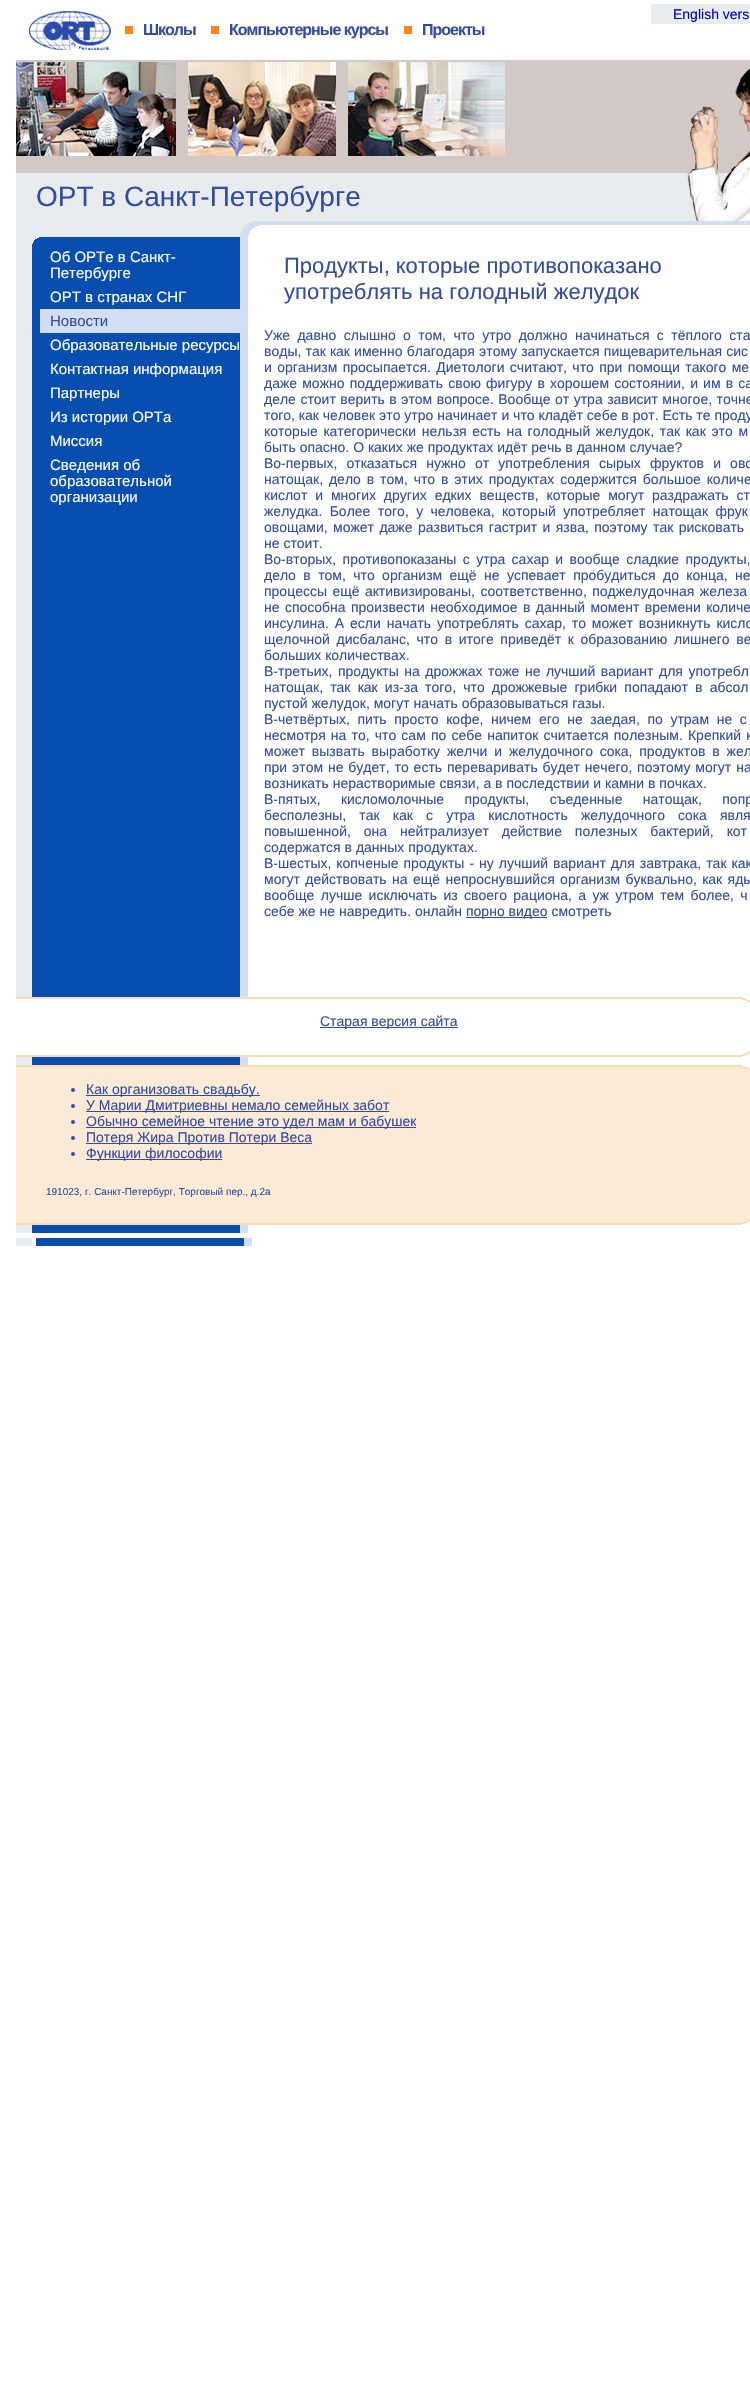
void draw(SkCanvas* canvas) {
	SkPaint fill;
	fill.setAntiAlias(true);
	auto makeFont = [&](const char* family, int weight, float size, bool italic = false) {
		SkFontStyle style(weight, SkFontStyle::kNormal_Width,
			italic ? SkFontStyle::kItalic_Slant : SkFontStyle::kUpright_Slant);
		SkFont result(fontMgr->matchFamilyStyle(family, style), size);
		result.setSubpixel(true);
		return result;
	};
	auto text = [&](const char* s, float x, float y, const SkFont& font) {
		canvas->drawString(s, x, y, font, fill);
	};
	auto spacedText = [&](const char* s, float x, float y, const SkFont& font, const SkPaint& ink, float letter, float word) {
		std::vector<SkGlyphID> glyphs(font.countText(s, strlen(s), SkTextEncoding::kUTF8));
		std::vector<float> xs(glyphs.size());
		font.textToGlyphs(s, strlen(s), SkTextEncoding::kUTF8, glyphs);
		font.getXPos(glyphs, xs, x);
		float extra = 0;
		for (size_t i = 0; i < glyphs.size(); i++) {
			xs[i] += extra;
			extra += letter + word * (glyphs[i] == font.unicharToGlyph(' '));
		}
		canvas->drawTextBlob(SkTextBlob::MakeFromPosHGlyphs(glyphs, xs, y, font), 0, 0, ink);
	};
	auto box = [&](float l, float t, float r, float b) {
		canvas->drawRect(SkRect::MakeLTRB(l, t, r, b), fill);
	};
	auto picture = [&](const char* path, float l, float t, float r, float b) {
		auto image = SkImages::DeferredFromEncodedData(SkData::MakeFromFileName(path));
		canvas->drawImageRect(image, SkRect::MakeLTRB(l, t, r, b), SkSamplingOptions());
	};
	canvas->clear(0xFFFFFFFF);
	fill.setColor(0xFFE9ECEF);
	box(651, 4, 750, 24);
	picture("image0.png", 29, 11, 111, 50);
	fill.setColor(0xFFFC851B);
	box(125, 26, 133, 34);
	box(211, 26, 219, 34);
	box(404, 26, 412, 34);
	fill.setColor(0xFFD2C9C6);
	box(16, 60, 750, 173);
	picture("image1.png", 16, 62, 176, 156);
	picture("image2.png", 188, 62, 336, 156);
	picture("image3.png", 348, 62, 505, 156);
	fill.setColor(0xFFE9ECEF);
	box(16, 173, 728, 221);
	picture("image4.png", 687, 68, 750, 221);
	box(16, 221, 240, 237);
	box(240, 221, 253, 234);
	picture("image5.png", 240, 221, 264, 245);
	fill.setColor(0xFFD2DFF3);
	box(264, 221, 750, 225);
	fill.setColor(0xFFE9ECEF);
	box(16, 237, 32, 997);
	fill.setColor(0xFF074EB0);
	box(32, 237, 240, 245);
	picture("image6.png", 32, 237, 39, 244);
	box(32, 245, 240, 997);
	fill.setColor(0xFFD2DFF3);
	box(240, 245, 248, 997);
	box(40, 309, 240, 333);
	fill.setColor(0xFF334CA0);
	box(466, 917, 547, 918);
	fill.setColor(0xFFFEDBAC);
	box(16, 997, 742, 999);
	picture("image7.png", 742, 998, 750, 1003);
	fill.setColor(0xFF334CA0);
	box(320, 1027, 458, 1028);
	fill.setColor(0xFFFEDBAC);
	box(16, 1055, 742, 1057);
	picture("image8.png", 742, 1051, 750, 1056);
	fill.setColor(0xFFE9ECEF);
	box(16, 1057, 32, 1065);
	fill.setColor(0xFF074EB0);
	box(32, 1057, 240, 1065);
	fill.setColor(0xFFD2DFF3);
	box(240, 1057, 248, 1065);
	fill.setColor(0xFFFBEBD6);
	box(16, 1067, 742, 1223);
	fill.setColor(0xFFFEDBAC);
	box(16, 1065, 742, 1067);
	fill.setColor(0xFFFBEBD6);
	box(742, 1065, 750, 1225);
	picture("image9.png", 742, 1065, 750, 1071);
	fill.setColor(0xFF334CA0);
	canvas->drawCircle(73, 1090, 2, fill);
	box(86, 1095, 260, 1096);
	canvas->drawCircle(73, 1106, 2, fill);
	box(86, 1111, 389, 1112);
	canvas->drawCircle(73, 1122, 2, fill);
	box(86, 1127, 416, 1128);
	canvas->drawCircle(73, 1138, 2, fill);
	box(86, 1143, 312, 1144);
	canvas->drawCircle(73, 1154, 2, fill);
	box(86, 1159, 222, 1160);
	fill.setColor(0xFFFEDBAC);
	box(16, 1223, 742, 1225);
	picture("image10.png", 742, 1219, 750, 1225);
	fill.setColor(0xFFE9ECEF);
	box(16, 1225, 32, 1233);
	fill.setColor(0xFF074EB0);
	box(32, 1225, 240, 1233);
	fill.setColor(0xFFD2DFF3);
	box(240, 1225, 248, 1233);
	fill.setColor(0xFFE9ECEF);
	box(16, 1238, 32, 1246);
	fill.setColor(0xFF074EB0);
	box(36, 1238, 244, 1246);
	fill.setColor(0xFFD2DFF3);
	box(244, 1238, 252, 1246);
	auto font1 = makeFont("Liberation Sans", 400, 14);
	fill.setColor(0xFF0000CC);
	text("English vers", 673, 19, font1);
	auto font2 = makeFont("Liberation Sans", 700, 16);
	fill.setColor(0xFF334CA0);
	spacedText("Школы", 143, 35, font2, fill, -1, 0);
	spacedText("Компьютерные курсы", 229, 35, font2, fill, -1, 0);
	spacedText("Проекты", 422, 35, font2, fill, -1, 0);
	auto font3 = makeFont("Liberation Sans", 400, 28);
	text("ОРТ в Санкт-Петербурге", 36, 206, font3);
	auto font4 = makeFont("Liberation Sans", 400, 15);
	fill.setColor(0xFFFFFFFF);
	text("Об ОРТе в Санкт-", 50, 262, font4);
	text("Петербурге", 50, 278, font4);
	text("ОРТ в странах СНГ", 50, 302, font4);
	fill.setColor(0xFF334CA0);
	text("Новости", 50, 326, font4);
	fill.setColor(0xFFFFFFFF);
	text("Образовательные ресурсы", 50, 350, font4);
	text("Контактная информация", 50, 374, font4);
	text("Партнеры", 50, 398, font4);
	text("Из истории ОРТа", 50, 422, font4);
	text("Миссия", 50, 446, font4);
	text("Сведения об", 50, 470, font4);
	text("образовательной", 50, 486, font4);
	text("организации", 50, 502, font4);
	auto font5 = makeFont("Liberation Sans", 400, 22);
	fill.setColor(0xFF334CA0);
	text("Продукты, которые противопоказано", 284, 273, font5);
	text("употреблять на голодный желудок", 284, 299, font5);
	spacedText("Уже давно слышно о том, что утро должно начинаться с тёплого ста", 264, 340, font1, fill, 0, 3.5f);
	spacedText("воды, так как именно благодаря этому запускается пищеварительная сис", 264, 356, font1, fill, 0, 0.25f);
	spacedText("и организм просыпается. Диетологи считают, что при помощи такого ме", 264, 372, font1, fill, 0, 1.5f);
	spacedText("даже можно поддерживать свою фигуру в хорошем состоянии, и им в са", 264, 388, font1, fill, 0, 1.25f);
	spacedText("деле стоит верить в этом вопросе. Вообще от утра зависит многое, точне", 264, 404, font1, fill, 0, 0.6f);
	text("того, как человек это утро начинает и что кладёт себе в рот. Есть те проду", 264, 420, font1);
	spacedText("которые категорически нельзя есть на голодный желудок, так как это м", 264, 436, font1, fill, 0, 1.75f);
	text("быть опасно. О каких же продуктах идёт речь в данном случае?", 264, 452, font1);
	spacedText("Во-первых, отказаться нужно от употребления сырых фруктов и ово", 264, 468, font1, fill, 0, 5.25f);
	spacedText("натощак, дело в том, что в этих продуктах содержится большое количе", 264, 484, font1, fill, 0, 2);
	spacedText("кислот и многих других едких веществ, которые могут раздражать ст", 264, 500, font1, fill, 0, 4);
	spacedText("желудка. Более того, у человека, который употребляет натощак фрук", 264, 516, font1, fill, 0, 3.5f);
	spacedText("овощами, может даже развиться гастрит и язва, поэтому так рисковать", 264, 532, font1, fill, 0, 1.5f);
	text("не стоит.", 264, 548, font1);
	spacedText("Во-вторых, противопоказаны с утра сахар и вообще сладкие продукты,", 264, 564, font1, fill, 0, 2.5f);
	spacedText("дело в том, что организм ещё не успевает пробудиться до конца, не", 264, 580, font1, fill, 0, 3.5f);
	spacedText("процессы ещё активизированы, соответственно, поджелудочная железа", 264, 596, font1, fill, 0, 1.5f);
	spacedText("не способна произвести необходимое в данный момент времени количе", 264, 612, font1, fill, 0, 1.5f);
	spacedText("инсулина. А если начать употреблять сахар, то может возникнуть кисло", 264, 628, font1, fill, 0, 2);
	spacedText("щелочной дисбаланс, что в итоге приведёт к образованию лишнего ве", 264, 644, font1, fill, 0, 2.75f);
	text("больших количествах.", 264, 660, font1);
	spacedText("В-третьих, продукты на дрожжах тоже не лучший вариант для употребл", 264, 676, font1, fill, 0, 1.6f);
	spacedText("натощак, так как из-за того, что дрожжевые грибки попадают в абсол", 264, 692, font1, fill, 0, 3.25f);
	text("пустой желудок, могут начать образовываться газы.", 264, 708, font1);
	spacedText("В-четвёртых, пить просто кофе, ничем его не заедая, по утрам не с", 264, 724, font1, fill, 0, 3.75f);
	spacedText("несмотря на то, что сам по себе напиток считается полезным. Крепкий к", 264, 740, font1, fill, 0, 1.25f);
	spacedText("может вызвать выработку желчи и желудочного сока, продуктов в жел", 264, 756, font1, fill, 0, 3);
	spacedText("при этом не будет, то есть переваривать будет нечего, поэтому могут на", 264, 772, font1, fill, 0, 1);
	text("возникать нерастворимые связи, а в последствии и камни в почках.", 264, 788, font1);
	spacedText("В-пятых, кисломолочные продукты, съеденные натощак, попр", 264, 804, font1, fill, 0, 16.5f);
	spacedText("бесполезны, так как с утра кислотность желудочного сока явля", 264, 820, font1, fill, 0, 9.25f);
	spacedText("повышенной, она нейтрализует действие полезных бактерий, кот", 264, 836, font1, fill, 0, 9);
	text("содержатся в данных продуктах.", 264, 852, font1);
	spacedText("В-шестых, копченые продукты - ну лучший вариант для завтрака, так как", 264, 868, font1, fill, 0, 1.1f);
	spacedText("могут действовать на ещё непроснувшийся организм буквально, как яды", 264, 884, font1, fill, 0, 1.5f);
	spacedText("вообще лучше исключать из своего рациона, а уж утром тем более, ч", 264, 900, font1, fill, 0, 2.5f);
	text("себе же не навредить. онлайн", 264, 916, font1);
	text("порно видео смотреть", 466, 916, font1);
	text("Старая версия сайта", 320, 1026, font1);
	text("Как организовать свадьбу.", 86, 1094, font1);
	text("У Марии Дмитриевны немало семейных забот", 86, 1110, font1);
	text("Обычно семейное чтение это удел мам и бабушек", 86, 1126, font1);
	text("Потеря Жира Против Потери Веса", 86, 1142, font1);
	text("Функции философии", 86, 1158, font1);
	auto font6 = makeFont("Liberation Sans", 400, 10);
	text("191023, г. Санкт-Петербург, Торговый пер., д.2а", 46, 1195, font6);
}
